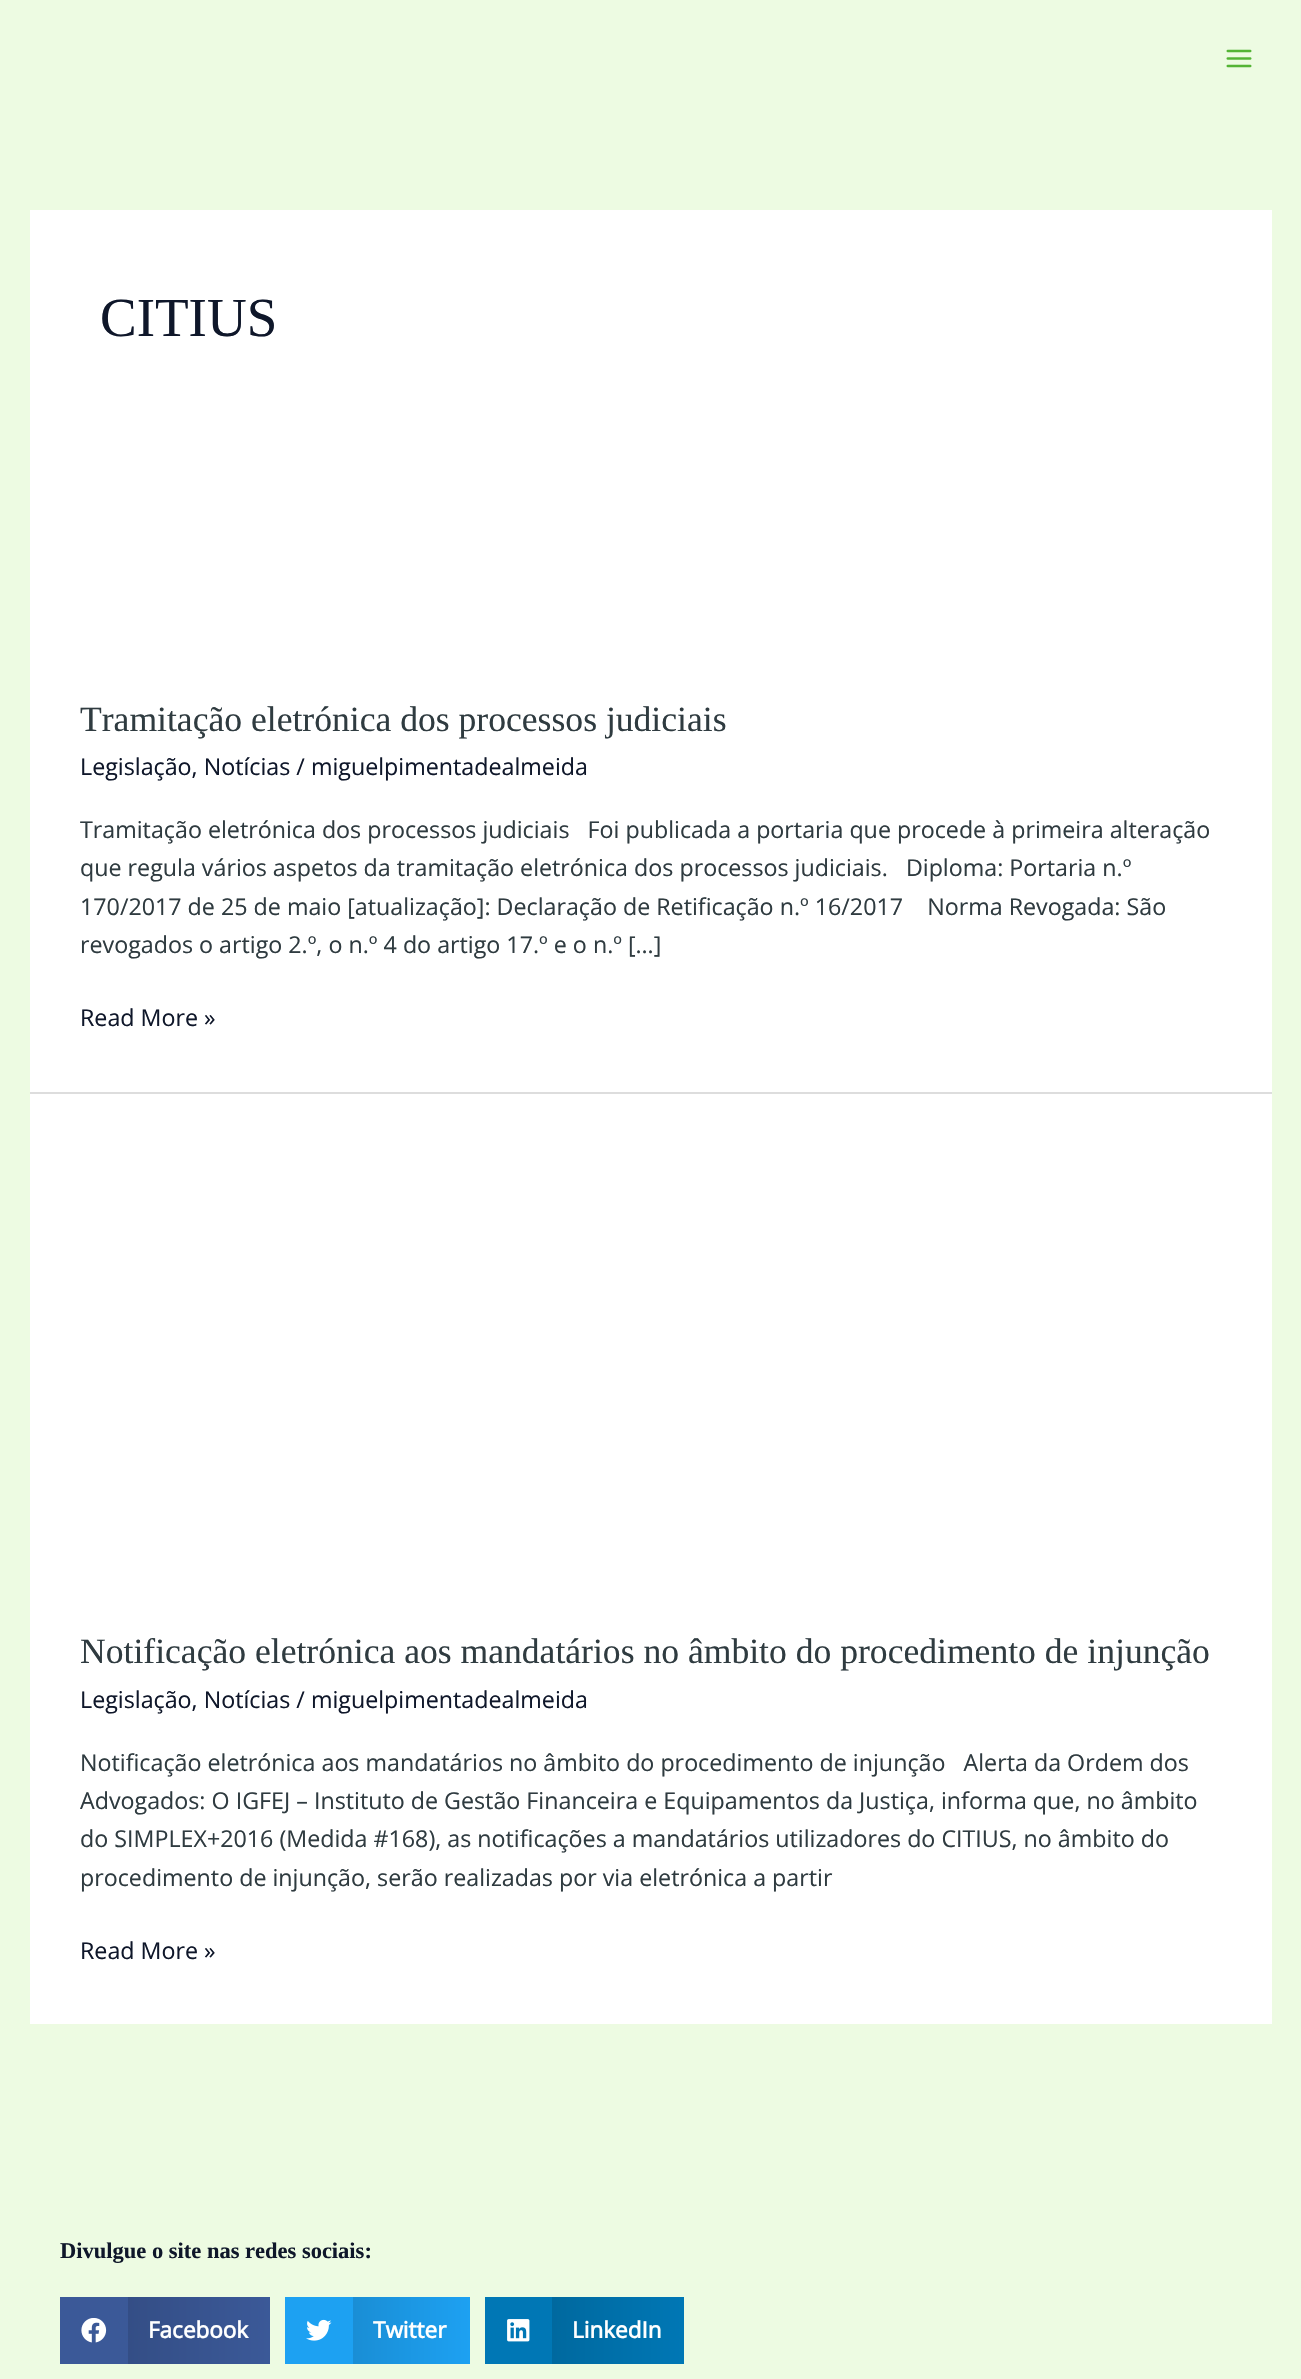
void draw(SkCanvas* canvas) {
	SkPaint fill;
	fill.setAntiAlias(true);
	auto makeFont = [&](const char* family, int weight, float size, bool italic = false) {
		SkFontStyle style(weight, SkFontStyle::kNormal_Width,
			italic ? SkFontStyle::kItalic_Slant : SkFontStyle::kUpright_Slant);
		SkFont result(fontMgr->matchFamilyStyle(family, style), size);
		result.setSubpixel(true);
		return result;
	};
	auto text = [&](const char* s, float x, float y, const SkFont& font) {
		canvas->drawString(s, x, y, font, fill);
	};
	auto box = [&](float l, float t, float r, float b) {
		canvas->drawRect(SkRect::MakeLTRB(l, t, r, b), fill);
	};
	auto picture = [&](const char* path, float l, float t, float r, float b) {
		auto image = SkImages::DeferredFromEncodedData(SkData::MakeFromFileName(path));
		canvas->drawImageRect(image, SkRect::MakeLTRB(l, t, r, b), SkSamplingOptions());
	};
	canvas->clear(0xFFEDFBE2);
	picture("image0.png", 1226, 49, 1252, 68);
	fill.setColor(0xFFFFFFFF);
	box(30, 210, 1272, 1092);
	fill.setColor(0xFFDDDDDD);
	box(30, 1092, 1272, 1094);
	fill.setColor(0xFFFFFFFF);
	box(30, 1094, 1272, 2024);
	fill.setColor(0xFF3B5998);
	box(60, 2297, 128, 2364);
	picture("image1.png", 81, 2318, 107, 2343);
	{
		const SkColor colors[] = {0xFF344E86, 0xFF3B5998};
		const float stops[] = {0, 1};
		const SkPoint ends[] = {{128, 2330}, {270, 2330}};
		fill.setShader(SkGradientShader::MakeLinear(ends, colors, stops, 2, SkTileMode::kClamp));
		fill.setAlpha(255);
	}
	box(128, 2297, 270, 2364);
	fill.setShader(nullptr);
	fill.setColor(0xFF1DA1F2);
	box(285, 2297, 353, 2364);
	picture("image2.png", 306, 2319, 332, 2341);
	{
		const SkColor colors[] = {0xFF1A8ED5, 0xFF1DA1F2};
		const float stops[] = {0, 1};
		const SkPoint ends[] = {{353, 2330}, {470, 2330}};
		fill.setShader(SkGradientShader::MakeLinear(ends, colors, stops, 2, SkTileMode::kClamp));
		fill.setAlpha(255);
	}
	box(353, 2297, 470, 2364);
	fill.setShader(nullptr);
	fill.setColor(0xFF0077B5);
	box(485, 2297, 552, 2364);
	picture("image3.png", 507, 2319, 530, 2342);
	{
		const SkColor colors[] = {0xFF00699F, 0xFF0077B5};
		const float stops[] = {0, 1};
		const SkPoint ends[] = {{552, 2330}, {684, 2330}};
		fill.setShader(SkGradientShader::MakeLinear(ends, colors, stops, 2, SkTileMode::kClamp));
		fill.setAlpha(255);
	}
	box(552, 2297, 684, 2364);
	auto font1 = makeFont("Liberation Serif", 400, 55);
	fill.setShader(nullptr);
	fill.setColor(0xFF0F172A);
	text("CITIUS", 100, 336, font1);
	auto font2 = makeFont("Liberation Serif", 400, 35.6f);
	fill.setColor(0xFF2F3B40);
	text("Tramitação eletrónica dos processos judiciais", 80, 731, font2);
	auto font3 = makeFont("Open Sans", 400, 23.25f);
	fill.setColor(0xFF0F172A);
	text("Legislação, Notícias / miguelpimentadealmeida", 80, 775, font3);
	fill.setColor(0xFF2F3B40);
	text("Tramitação eletrónica dos processos judiciais   Foi publicada a portaria que procede à primeira alteração", 80, 838, font3);
	text("que regula vários aspetos da tramitação eletrónica dos processos judiciais.   Diploma: Portaria n.º", 80, 876, font3);
	text("170/2017 de 25 de maio [atualização]: Declaração de Retificação n.º 16/2017    Norma Revogada: São", 80, 915, font3);
	text("revogados o artigo 2.º, o n.º 4 do artigo 17.º e o n.º […]", 80, 953, font3);
	fill.setColor(0xFF0F172A);
	text("Read More »", 80, 1026, font3);
	fill.setColor(0xFF2F3B40);
	text("Notificação eletrónica aos mandatários no âmbito do procedimento de injunção", 80, 1663, font2);
	fill.setColor(0xFF0F172A);
	text("Legislação, Notícias / miguelpimentadealmeida", 80, 1708, font3);
	fill.setColor(0xFF2F3B40);
	text("Notificação eletrónica aos mandatários no âmbito do procedimento de injunção   Alerta da Ordem dos", 80, 1771, font3);
	text("Advogados: O IGFEJ – Instituto de Gestão Financeira e Equipamentos da Justiça, informa que, no âmbito", 80, 1809, font3);
	text("do SIMPLEX+2016 (Medida #168), as notificações a mandatários utilizadores do CITIUS, no âmbito do", 80, 1847, font3);
	text("procedimento de injunção, serão realizadas por via eletrónica a partir", 80, 1886, font3);
	fill.setColor(0xFF0F172A);
	text("Read More »", 80, 1959, font3);
	auto font4 = makeFont("Liberation Serif", 700, 22.5f);
	text("Divulgue o site nas redes sociais:", 60, 2258, font4);
	auto font5 = makeFont("Open Sans", 700, 22.5f);
	fill.setColor(0xFFFFFFFF);
	text("Facebook", 148, 2338, font5);
	text("Twitter", 373, 2338, font5);
	text("LinkedIn", 572, 2338, font5);
}
